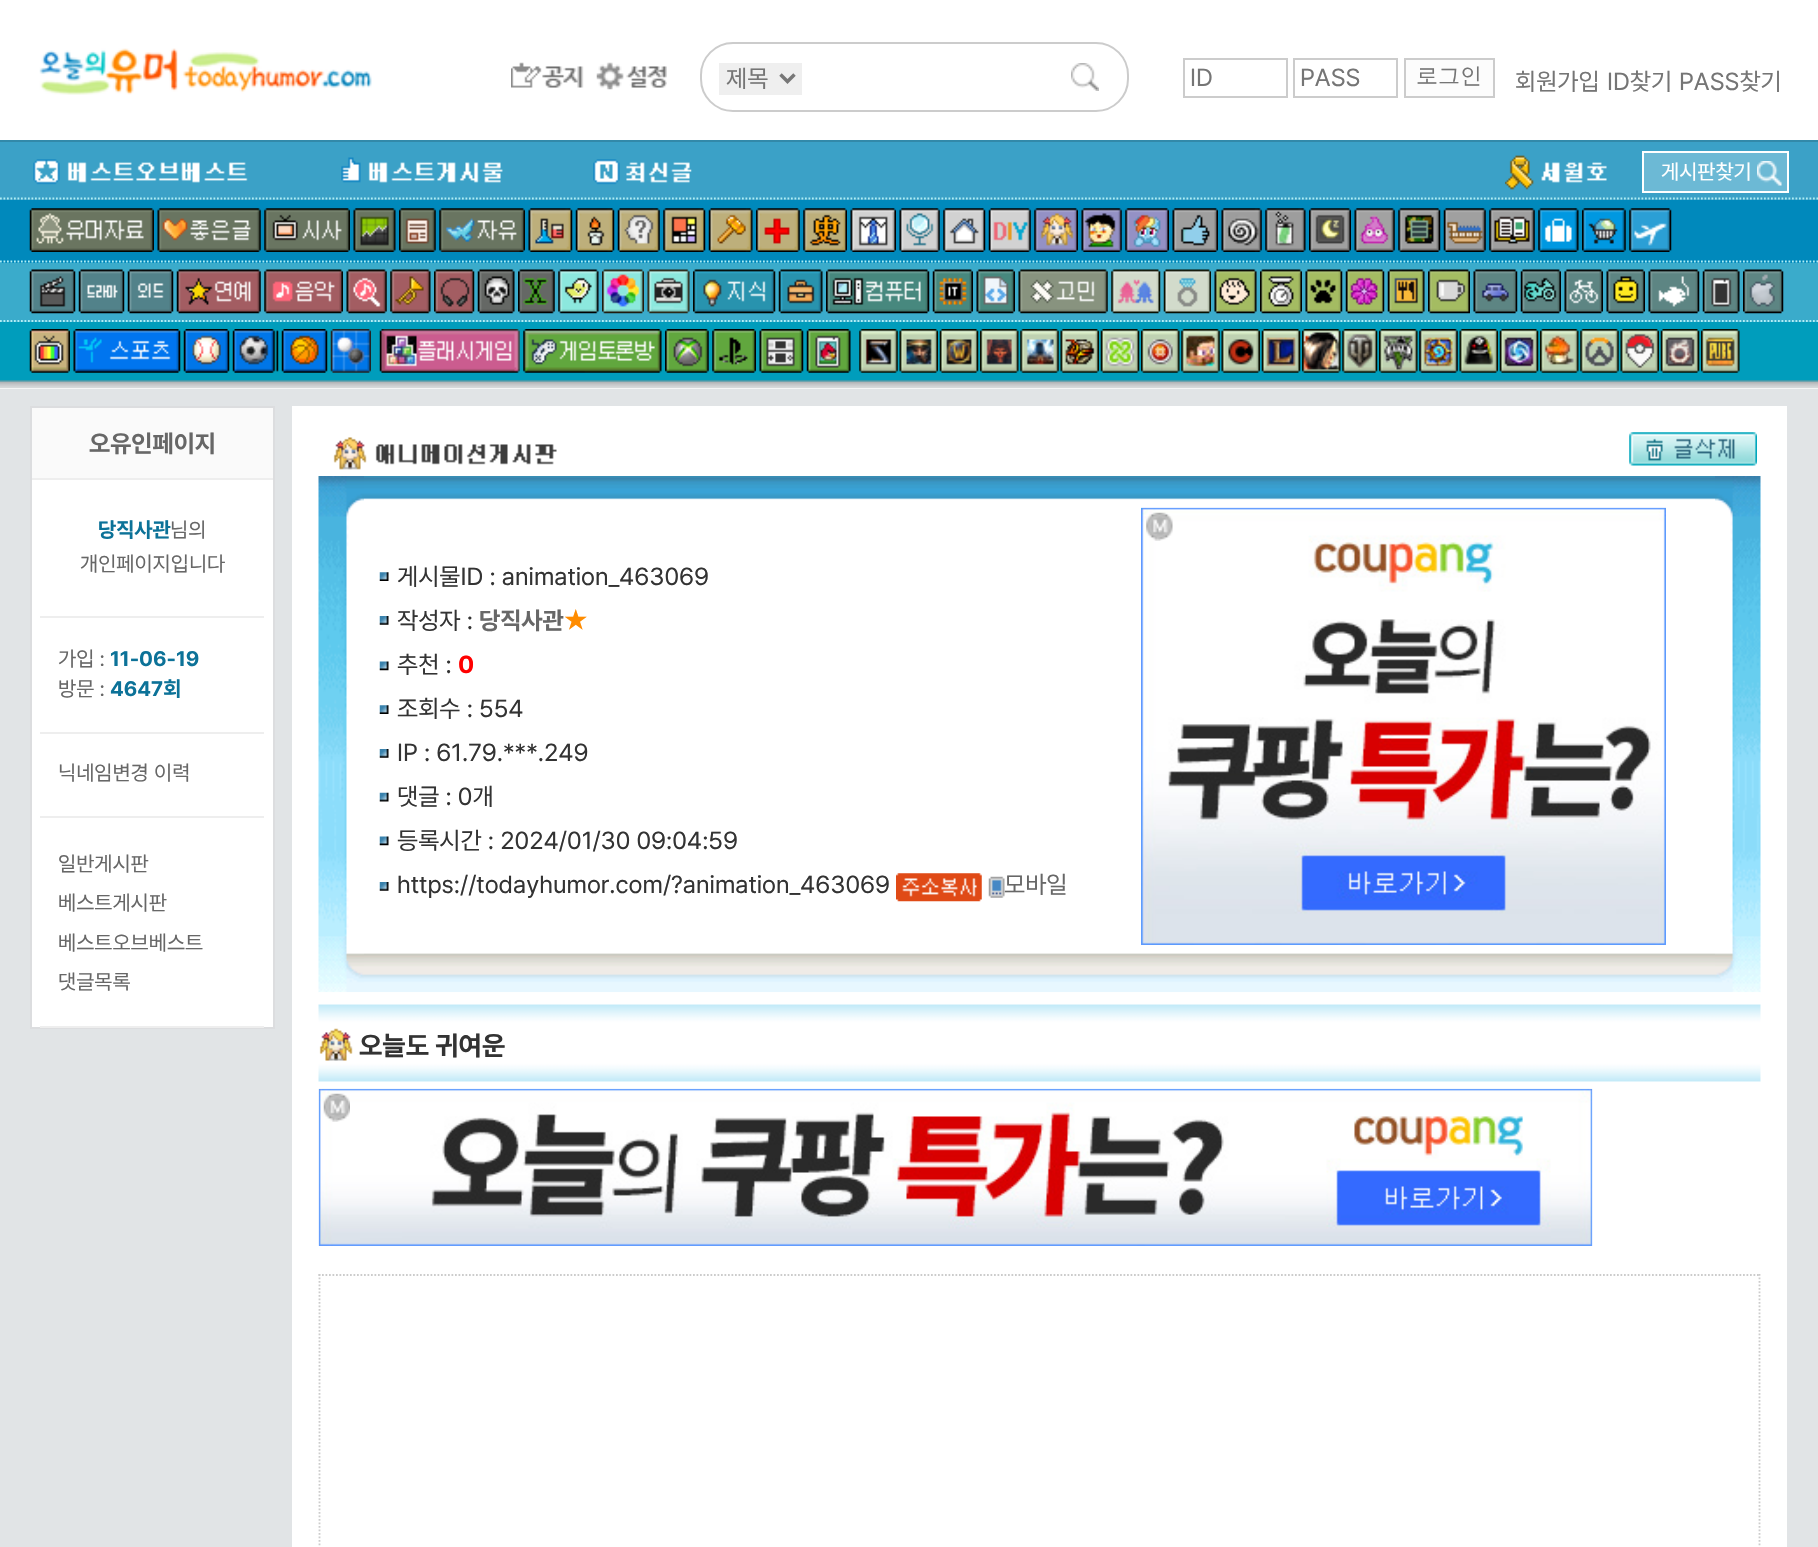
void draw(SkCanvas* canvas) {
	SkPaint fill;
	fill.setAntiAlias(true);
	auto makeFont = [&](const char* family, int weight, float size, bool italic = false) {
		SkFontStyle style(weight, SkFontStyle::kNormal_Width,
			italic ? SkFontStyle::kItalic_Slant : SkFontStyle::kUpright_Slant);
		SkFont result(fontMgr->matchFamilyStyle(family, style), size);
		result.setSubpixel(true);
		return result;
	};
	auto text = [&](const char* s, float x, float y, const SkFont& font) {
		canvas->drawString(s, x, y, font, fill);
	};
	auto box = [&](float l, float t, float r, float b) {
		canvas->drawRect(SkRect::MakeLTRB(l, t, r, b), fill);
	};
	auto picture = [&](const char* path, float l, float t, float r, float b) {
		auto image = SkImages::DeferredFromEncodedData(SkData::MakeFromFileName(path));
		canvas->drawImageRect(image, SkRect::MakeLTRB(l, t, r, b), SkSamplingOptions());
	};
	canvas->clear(0xFFFFFFFF);
	picture("image0.png", 39, 48, 372, 95);
	picture("image1.png", 511, 62, 584, 88);
	picture("image2.png", 596, 62, 667, 90);
	fill.setStyle(SkPaint::kStroke_Style);
	fill.setStrokeWidth(2);
	fill.setColor(0xFFCCCCCC);
	canvas->drawRoundRect(SkRect::MakeLTRB(701, 43, 1128, 111), 32, 32, fill);
	fill.setStyle(SkPaint::kFill_Style);
	fill.setColor(0xFFEFEFEF);
	box(719, 63, 802, 95);
	fill.setStyle(SkPaint::kStroke_Style);
	fill.setStrokeWidth(3.5f);
	fill.setColor(0xFF777777);
	canvas->drawPath(SkPathBuilder().moveTo(780.5f, 74.5f).lineTo(787.5f, 81.5f).lineTo(794.5f, 74.5f).detach(), fill);
	picture("image3.png", 1071, 63, 1099, 91);
	fill.setStrokeWidth(2);
	fill.setColor(0xFFCCCCCC);
	canvas->drawRect(SkRect::MakeLTRB(1184, 59, 1287, 97), fill);
	canvas->drawRect(SkRect::MakeLTRB(1294, 59, 1397, 97), fill);
	fill.setStyle(SkPaint::kFill_Style);
	fill.setColor(0xFFFCFCFC);
	canvas->drawRect(SkRect::MakeLTRB(1405, 59, 1494, 97), fill);
	fill.setStyle(SkPaint::kStroke_Style);
	fill.setColor(0xFFCCCCCC);
	canvas->drawRect(SkRect::MakeLTRB(1405, 59, 1494, 97), fill);
	fill.setStyle(SkPaint::kFill_Style);
	fill.setColor(0xFF3BA1C7);
	box(0, 142, 1818, 200);
	fill.setColor(0xFF3289A9);
	box(0, 140, 1818, 142);
	fill.setStyle(SkPaint::kStroke_Style);
	fill.setStrokeWidth(1.8f);
	fill.setColor(0xFFB0EEF5);
	fill.setPathEffect(SkDashPathEffect::Make({{1.75f, 1.75f}}, 0));
	canvas->drawPath(SkPathBuilder().moveTo(0, 198.5f).lineTo(1818, 198.5f).detach(), fill);
	fill.setPathEffect(nullptr);
	picture("image4.png", 33, 159, 248, 185);
	picture("image5.png", 341, 157, 503, 183);
	picture("image6.png", 593, 159, 692, 185);
	picture("image7.png", 1505, 155, 1607, 190);
	fill.setStyle(SkPaint::kFill_Style);
	fill.setColor(0xFF6CB9D5);
	canvas->drawRect(SkRect::MakeLTRB(1643, 152, 1788, 192), fill);
	fill.setStyle(SkPaint::kStroke_Style);
	fill.setStrokeWidth(2);
	fill.setColor(0xFFFFFFFF);
	canvas->drawRect(SkRect::MakeLTRB(1643, 152, 1788, 192), fill);
	picture("image8.png", 1757, 161, 1782, 186);
	fill.setStyle(SkPaint::kFill_Style);
	fill.setColor(0xFF0089BC);
	box(0, 200, 1818, 263);
	fill.setStyle(SkPaint::kStroke_Style);
	fill.setStrokeWidth(1.8f);
	fill.setColor(0xFFB0EEF5);
	fill.setPathEffect(SkDashPathEffect::Make({{1.75f, 1.75f}}, 0));
	canvas->drawPath(SkPathBuilder().moveTo(0, 261.5f).lineTo(1818, 261.5f).detach(), fill);
	fill.setPathEffect(nullptr);
	picture("image9.png", 29, 208, 154, 252);
	picture("image10.png", 157, 208, 261, 252);
	picture("image11.png", 264, 208, 350, 252);
	picture("image12.png", 353, 208, 396, 252);
	picture("image13.png", 399, 208, 436, 252);
	picture("image14.png", 439, 208, 525, 252);
	picture("image15.png", 528, 208, 573, 252);
	picture("image16.png", 575, 208, 615, 252);
	picture("image17.png", 617, 208, 660, 252);
	picture("image18.png", 663, 208, 706, 252);
	picture("image19.png", 708, 208, 753, 252);
	picture("image20.png", 756, 208, 800, 252);
	picture("image21.png", 803, 208, 847, 252);
	picture("image22.png", 850, 208, 896, 252);
	picture("image23.png", 899, 208, 940, 252);
	picture("image24.png", 943, 208, 986, 252);
	picture("image25.png", 988, 208, 1031, 252);
	picture("image26.png", 1034, 208, 1078, 252);
	picture("image27.png", 1081, 208, 1122, 252);
	picture("image28.png", 1125, 208, 1169, 252);
	picture("image29.png", 1172, 208, 1218, 252);
	picture("image30.png", 1221, 208, 1262, 252);
	picture("image31.png", 1265, 208, 1306, 252);
	picture("image32.png", 1309, 208, 1351, 252);
	picture("image33.png", 1354, 208, 1395, 252);
	picture("image34.png", 1398, 208, 1441, 252);
	picture("image35.png", 1443, 208, 1486, 252);
	picture("image36.png", 1489, 208, 1535, 252);
	picture("image37.png", 1538, 208, 1579, 252);
	picture("image38.png", 1582, 208, 1626, 252);
	picture("image39.png", 1629, 208, 1672, 252);
	fill.setStyle(SkPaint::kFill_Style);
	fill.setColor(0xFF3AABCB);
	box(0, 263, 1818, 322);
	fill.setStyle(SkPaint::kStroke_Style);
	fill.setColor(0xFFB0EEF5);
	fill.setPathEffect(SkDashPathEffect::Make({{1.75f, 1.75f}}, 0));
	canvas->drawPath(SkPathBuilder().moveTo(0, 321).lineTo(1818, 321).detach(), fill);
	fill.setPathEffect(nullptr);
	picture("image40.png", 29, 269, 76, 314);
	picture("image41.png", 78, 269, 125, 314);
	picture("image42.png", 127, 269, 174, 314);
	picture("image43.png", 176, 269, 261, 314);
	picture("image44.png", 264, 269, 343, 314);
	picture("image45.png", 346, 269, 387, 314);
	picture("image46.png", 390, 269, 431, 314);
	picture("image47.png", 434, 269, 475, 314);
	picture("image48.png", 477, 269, 515, 314);
	picture("image49.png", 518, 269, 555, 314);
	picture("image50.png", 558, 269, 599, 314);
	picture("image51.png", 602, 269, 644, 314);
	picture("image52.png", 647, 269, 690, 314);
	picture("image53.png", 693, 269, 776, 314);
	picture("image54.png", 778, 269, 823, 314);
	picture("image55.png", 826, 269, 930, 314);
	picture("image56.png", 932, 269, 973, 314);
	picture("image57.png", 976, 269, 1015, 314);
	picture("image58.png", 1018, 269, 1108, 314);
	picture("image59.png", 1111, 269, 1161, 314);
	picture("image60.png", 1163, 269, 1211, 314);
	picture("image61.png", 1214, 269, 1257, 314);
	picture("image62.png", 1260, 269, 1302, 314);
	picture("image63.png", 1305, 269, 1343, 314);
	picture("image64.png", 1345, 269, 1385, 314);
	picture("image65.png", 1387, 269, 1425, 314);
	picture("image66.png", 1428, 269, 1470, 314);
	picture("image67.png", 1473, 269, 1518, 314);
	picture("image68.png", 1520, 269, 1561, 314);
	picture("image69.png", 1564, 269, 1603, 314);
	picture("image70.png", 1606, 269, 1645, 314);
	picture("image71.png", 1648, 269, 1700, 314);
	picture("image72.png", 1702, 269, 1740, 314);
	picture("image73.png", 1743, 269, 1784, 314);
	fill.setStyle(SkPaint::kFill_Style);
	fill.setColor(0xFF009DBC);
	box(0, 322, 1818, 380);
	picture("image74.png", 29, 329, 70, 373);
	picture("image75.png", 73, 329, 181, 373);
	picture("image76.png", 183, 329, 230, 373);
	picture("image77.png", 232, 329, 279, 373);
	picture("image78.png", 281, 329, 328, 373);
	picture("image79.png", 330, 329, 371, 373);
	picture("image80.png", 379, 329, 520, 373);
	picture("image81.png", 523, 329, 662, 373);
	picture("image82.png", 665, 329, 709, 373);
	picture("image83.png", 712, 329, 756, 373);
	picture("image84.png", 759, 329, 804, 373);
	picture("image85.png", 806, 329, 851, 373);
	picture("image86.png", 859, 329, 898, 373);
	picture("image87.png", 899, 329, 938, 373);
	picture("image88.png", 939, 329, 979, 373);
	picture("image89.png", 980, 329, 1019, 373);
	picture("image90.png", 1020, 329, 1059, 373);
	picture("image91.png", 1060, 329, 1099, 373);
	picture("image92.png", 1100, 329, 1140, 373);
	picture("image93.png", 1141, 329, 1180, 373);
	picture("image94.png", 1181, 329, 1220, 373);
	picture("image95.png", 1221, 329, 1260, 373);
	picture("image96.png", 1261, 329, 1301, 373);
	picture("image97.png", 1302, 329, 1341, 373);
	picture("image98.png", 1342, 329, 1378, 373);
	picture("image99.png", 1379, 329, 1418, 373);
	picture("image100.png", 1419, 329, 1458, 373);
	picture("image101.png", 1459, 329, 1498, 373);
	picture("image102.png", 1499, 329, 1539, 373);
	picture("image103.png", 1540, 329, 1579, 373);
	picture("image104.png", 1580, 329, 1619, 373);
	picture("image105.png", 1620, 329, 1659, 373);
	picture("image106.png", 1660, 329, 1700, 373);
	picture("image107.png", 1701, 329, 1740, 373);
	picture("image108.png", 0, 380, 1818, 389);
	fill.setColor(0xFFE1E4E6);
	box(0, 389, 1818, 1547);
	fill.setColor(0xFFFFFFFF);
	box(32, 480, 273, 1027);
	fill.setStyle(SkPaint::kStroke_Style);
	fill.setStrokeWidth(2);
	fill.setColor(0xFFDCDDDF);
	canvas->drawRect(SkRect::MakeLTRB(31, 407, 274, 1028), fill);
	fill.setStyle(SkPaint::kFill_Style);
	fill.setColor(0xFFFAFAFA);
	box(32, 408, 273, 478);
	fill.setColor(0xFFEEEEEE);
	box(32, 478, 273, 480);
	box(40, 616, 264, 618);
	box(40, 732, 264, 734);
	box(40, 816, 264, 818);
	box(40, 1026, 264, 1028);
	fill.setColor(0xFFFFFFFF);
	box(292, 406, 1787, 1547);
	picture("image109.png", 333, 437, 557, 470);
	picture("image110.png", 1629, 432, 1757, 466);
	picture("image111.png", 318, 476, 364, 993);
	picture("image112.png", 364, 476, 1715, 993);
	picture("image113.png", 1715, 476, 1761, 993);
	picture("image114.png", 379, 572, 389, 581);
	picture("image115.png", 379, 616, 389, 625);
	picture("image116.png", 379, 661, 389, 671);
	picture("image114.png", 379, 705, 389, 714);
	picture("image115.png", 379, 749, 389, 758);
	picture("image117.png", 379, 792, 389, 802);
	picture("image116.png", 379, 836, 389, 846);
	picture("image115.png", 379, 882, 389, 891);
	picture("image118.png", 896, 873, 982, 902);
	picture("image119.png", 988, 876, 1005, 898);
	picture("image120.png", 1141, 507, 1666, 945);
	picture("image123.png", 318, 1088, 1593, 1246);
	picture("image121.png", 318, 992, 1761, 1089);
	picture("image122.png", 319, 1028, 353, 1061);
	fill.setStyle(SkPaint::kStroke_Style);
	fill.setStrokeWidth(1.8f);
	fill.setColor(0xFFCCCCCC);
	fill.setPathEffect(SkDashPathEffect::Make({{1.75f, 1.75f}}, 0));
	canvas->drawPath(SkPathBuilder().moveTo(318.5f, 1275).lineTo(1760.5f, 1275).detach(), fill);
	fill.setPathEffect(nullptr);
	fill.setPathEffect(SkDashPathEffect::Make({{1.75f, 1.75f}}, 0));
	canvas->drawPath(SkPathBuilder().moveTo(1759.5f, 1274).lineTo(1759.5f, 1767.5f).detach(), fill);
	fill.setPathEffect(nullptr);
	fill.setPathEffect(SkDashPathEffect::Make({{1.75f, 1.75f}}, 0));
	canvas->drawPath(SkPathBuilder().moveTo(319.5f, 1274).lineTo(319.5f, 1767.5f).detach(), fill);
	fill.setPathEffect(nullptr);
	auto font1 = makeFont("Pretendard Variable", 400, 24.5f);
	fill.setStyle(SkPaint::kFill_Style);
	fill.setColor(0xFF757575);
	text("제목", 726, 87, font1);
	text("ID", 1190, 86, font1);
	text("PASS", 1300, 86, font1);
	auto font2 = makeFont("WenQuanYi Zen Hei", 500, 22);
	text("로그인", 1416, 83, font2);
	text("회원가입", 1515, 90, font1);
	text("ID찾기", 1607, 90, font1);
	text("PASS찾기", 1679, 90, font1);
	auto font3 = makeFont("Pretendard Variable", 400, 21);
	fill.setColor(0xFFFFFFFF);
	text("게시판찾기", 1661, 179, font3);
	auto font4 = makeFont("Pretendard Variable", 700, 24.5f);
	fill.setColor(0xFF676767);
	text("오유인페이지", 89, 452, font4);
	auto font5 = makeFont("Pretendard Variable", 700, 21);
	fill.setColor(0xFF0C7298);
	text("당직사관", 98, 537, font5);
	fill.setColor(0xFF676767);
	text("님의", 170, 537, font3);
	text("개인페이지입니다", 80, 571, font3);
	text("가입 :", 58, 666, font3);
	fill.setColor(0xFF0C7298);
	text("11-06-19", 110, 666, font5);
	fill.setColor(0xFF676767);
	text("방문 :", 58, 696, font3);
	fill.setColor(0xFF0C7298);
	text("4647회", 110, 696, font5);
	fill.setColor(0xFF676767);
	text("닉네임변경 이력", 58, 780, font3);
	text("일반게시판", 58, 871, font3);
	text("베스트게시판", 58, 910, font3);
	text("베스트오브베스트", 58, 950, font3);
	text("댓글목록", 58, 989, font3);
	fill.setColor(0xFF333333);
	text("게시물ID : animation_463069", 397, 585, font1);
	text("작성자 :", 397, 629, font1);
	fill.setColor(0xFF676767);
	text("당직사관", 479, 629, font4);
	fill.setColor(0xFFFF8C00);
	text("★", 564, 629, font1);
	fill.setColor(0xFF333333);
	text("추천 :", 397, 673, font1);
	fill.setColor(0xFFFF0000);
	text("0", 458, 673, font4);
	fill.setColor(0xFF333333);
	text("조회수 : 554", 397, 717, font1);
	text("IP : 61.79.***.249", 397, 761, font1);
	text("댓글 : 0개", 397, 805, font1);
	text("등록시간 : 2024/01/30 09:04:59", 397, 849, font1);
	text("https://todayhumor.com/?animation_463069", 397, 893, font1);
	fill.setColor(0xFF676767);
	text("모바일", 1004, 893, font1);
	auto font6 = makeFont("Pretendard Variable", 700, 27);
	fill.setColor(0xFF333333);
	text("오늘도 귀여운", 359, 1055, font6);
}
